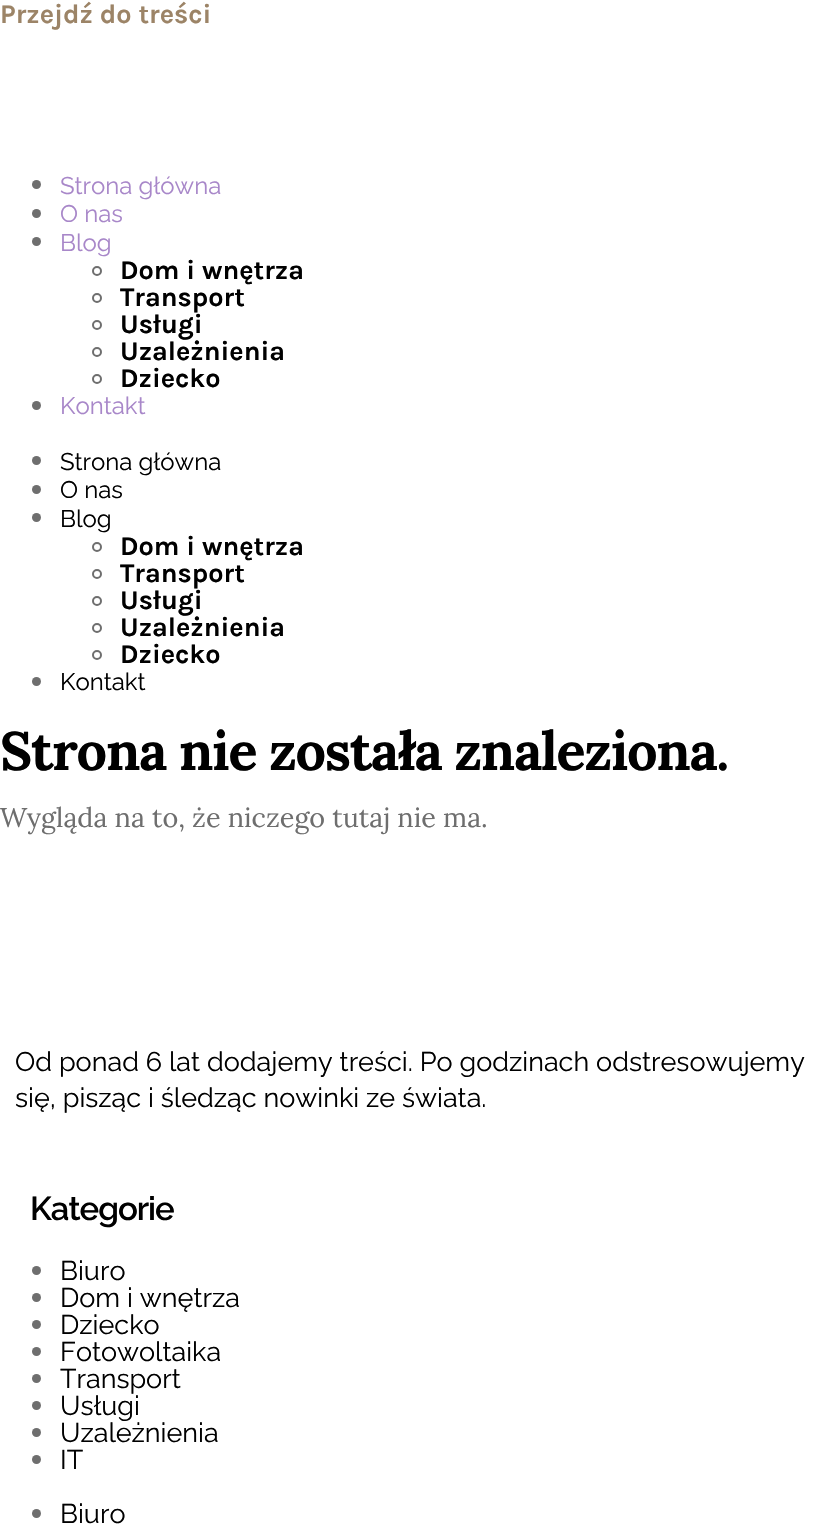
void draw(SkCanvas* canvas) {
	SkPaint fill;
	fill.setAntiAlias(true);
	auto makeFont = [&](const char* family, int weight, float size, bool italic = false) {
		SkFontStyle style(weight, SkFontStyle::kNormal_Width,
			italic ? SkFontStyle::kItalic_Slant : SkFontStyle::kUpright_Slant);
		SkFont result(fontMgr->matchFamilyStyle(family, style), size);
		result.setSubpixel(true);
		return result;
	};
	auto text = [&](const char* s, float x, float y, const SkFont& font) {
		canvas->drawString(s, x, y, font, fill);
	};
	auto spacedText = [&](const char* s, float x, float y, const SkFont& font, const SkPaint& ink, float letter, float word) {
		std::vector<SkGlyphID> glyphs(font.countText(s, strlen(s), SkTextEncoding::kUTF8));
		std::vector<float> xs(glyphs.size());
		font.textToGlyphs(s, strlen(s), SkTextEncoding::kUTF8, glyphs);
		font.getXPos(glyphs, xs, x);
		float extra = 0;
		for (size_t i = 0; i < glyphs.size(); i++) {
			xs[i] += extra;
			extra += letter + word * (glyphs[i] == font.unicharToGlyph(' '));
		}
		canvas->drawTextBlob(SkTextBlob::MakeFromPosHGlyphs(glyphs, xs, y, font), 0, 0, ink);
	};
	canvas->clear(0xFFFFFFFF);
	fill.setColor(0xFF6E6E6E);
	canvas->drawCircle(36.5f, 184.5f, 4.5f, fill);
	canvas->drawCircle(36.5f, 213.5f, 4.5f, fill);
	canvas->drawCircle(36.5f, 241.5f, 4.5f, fill);
	fill.setStyle(SkPaint::kStroke_Style);
	fill.setStrokeWidth(2);
	canvas->drawCircle(97, 271, 4, fill);
	canvas->drawCircle(97, 298, 4, fill);
	canvas->drawCircle(97, 325, 4, fill);
	canvas->drawCircle(97, 352, 4, fill);
	canvas->drawCircle(97, 379, 4, fill);
	fill.setStyle(SkPaint::kFill_Style);
	canvas->drawCircle(36.5f, 405.5f, 4.5f, fill);
	canvas->drawCircle(36.5f, 460.5f, 4.5f, fill);
	canvas->drawCircle(36.5f, 489.5f, 4.5f, fill);
	canvas->drawCircle(36.5f, 517.5f, 4.5f, fill);
	fill.setStyle(SkPaint::kStroke_Style);
	canvas->drawCircle(97, 547, 4, fill);
	canvas->drawCircle(97, 574, 4, fill);
	canvas->drawCircle(97, 601, 4, fill);
	canvas->drawCircle(97, 628, 4, fill);
	canvas->drawCircle(97, 655, 4, fill);
	fill.setStyle(SkPaint::kFill_Style);
	canvas->drawCircle(36.5f, 681.5f, 4.5f, fill);
	canvas->drawCircle(36.5f, 1270.5f, 4.5f, fill);
	canvas->drawCircle(36.5f, 1297.5f, 4.5f, fill);
	canvas->drawCircle(36.5f, 1324.5f, 4.5f, fill);
	canvas->drawCircle(36.5f, 1351.5f, 4.5f, fill);
	canvas->drawCircle(36.5f, 1378.5f, 4.5f, fill);
	canvas->drawCircle(36.5f, 1405.5f, 4.5f, fill);
	canvas->drawCircle(36.5f, 1432.5f, 4.5f, fill);
	canvas->drawCircle(36.5f, 1459.5f, 4.5f, fill);
	canvas->drawCircle(36.5f, 1513.5f, 4.5f, fill);
	auto font1 = makeFont("Karla", 700, 27);
	fill.setColor(0xFF9C8467);
	text("Przejdź do treści", 0, 23, font1);
	auto font2 = makeFont("Raleway", 400, 24);
	fill.setColor(0xFFA887C9);
	text("Strona główna", 60, 194, font2);
	text("O nas", 60, 222, font2);
	text("Blog", 60, 251, font2);
	fill.setColor(0xFF000000);
	text("Dom i wnętrza", 120, 279, font1);
	text("Transport", 120, 306, font1);
	text("Usługi", 120, 333, font1);
	text("Uzależnienia", 120, 360, font1);
	text("Dziecko", 120, 387, font1);
	fill.setColor(0xFFA887C9);
	text("Kontakt", 60, 414, font2);
	fill.setColor(0xFF000000);
	text("Strona główna", 60, 470, font2);
	text("O nas", 60, 498, font2);
	text("Blog", 60, 527, font2);
	text("Dom i wnętrza", 120, 555, font1);
	text("Transport", 120, 582, font1);
	text("Usługi", 120, 609, font1);
	text("Uzależnienia", 120, 636, font1);
	text("Dziecko", 120, 663, font1);
	text("Kontakt", 60, 690, font2);
	auto font3 = makeFont("Lora", 700, 54);
	spacedText("Strona nie została znaleziona.", 0, 770, font3, fill, -1.3f, 0);
	auto font4 = makeFont("Lora", 400, 27);
	fill.setColor(0xFF6E6E6E);
	text("Wygląda na to, że niczego tutaj nie ma.", 0, 827, font4);
	auto font5 = makeFont("Raleway", 400, 27);
	fill.setColor(0xFF000000);
	text("Od ponad 6 lat dodajemy treści. Po godzinach odstresowujemy", 15, 1071, font5);
	text("się, pisząc i śledząc nowinki ze świata.", 15, 1107, font5);
	auto font6 = makeFont("Raleway", 600, 33);
	spacedText("Kategorie", 30, 1220, font6, fill, -1, 0);
	text("Biuro", 60, 1280, font5);
	text("Dom i wnętrza", 60, 1307, font5);
	text("Dziecko", 60, 1334, font5);
	text("Fotowoltaika", 60, 1361, font5);
	text("Transport", 60, 1388, font5);
	text("Usługi", 60, 1415, font5);
	text("Uzależnienia", 60, 1442, font5);
	text("IT", 60, 1469, font5);
	text("Biuro", 60, 1523, font5);
}
